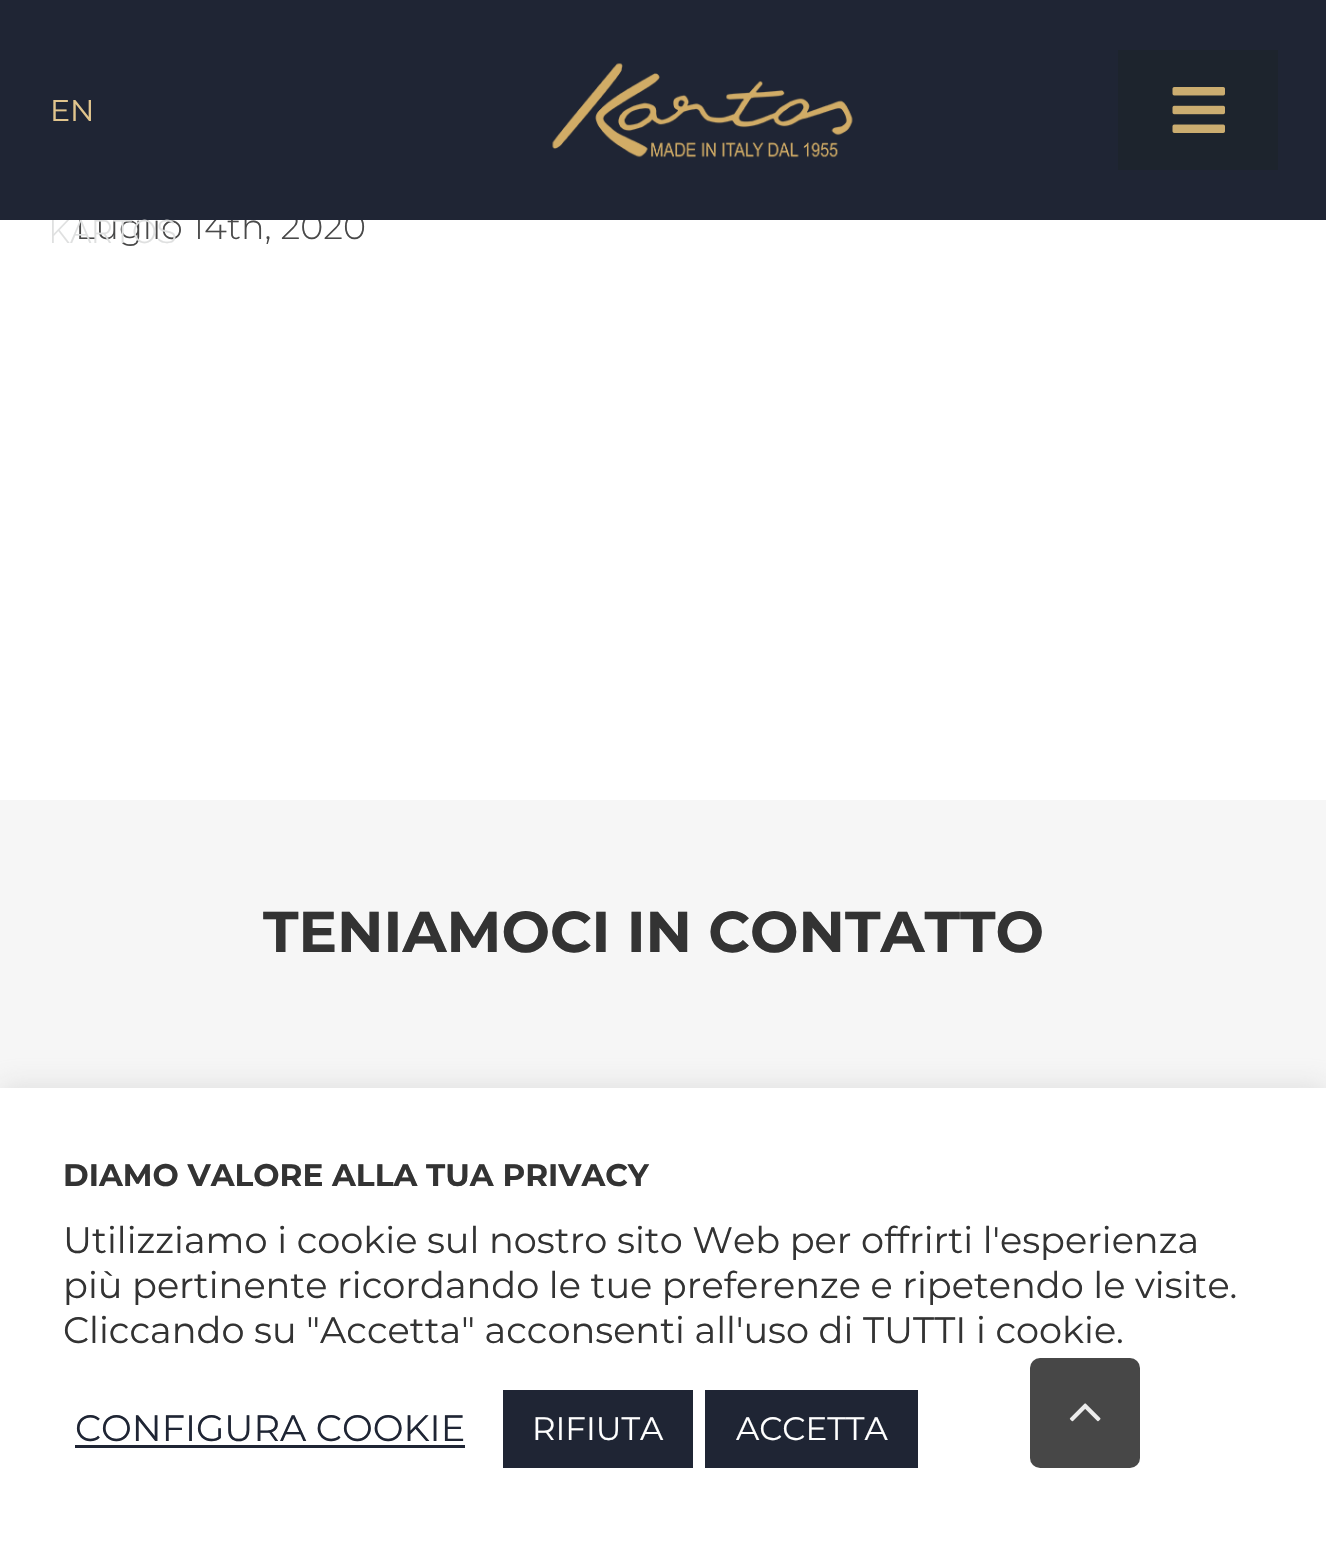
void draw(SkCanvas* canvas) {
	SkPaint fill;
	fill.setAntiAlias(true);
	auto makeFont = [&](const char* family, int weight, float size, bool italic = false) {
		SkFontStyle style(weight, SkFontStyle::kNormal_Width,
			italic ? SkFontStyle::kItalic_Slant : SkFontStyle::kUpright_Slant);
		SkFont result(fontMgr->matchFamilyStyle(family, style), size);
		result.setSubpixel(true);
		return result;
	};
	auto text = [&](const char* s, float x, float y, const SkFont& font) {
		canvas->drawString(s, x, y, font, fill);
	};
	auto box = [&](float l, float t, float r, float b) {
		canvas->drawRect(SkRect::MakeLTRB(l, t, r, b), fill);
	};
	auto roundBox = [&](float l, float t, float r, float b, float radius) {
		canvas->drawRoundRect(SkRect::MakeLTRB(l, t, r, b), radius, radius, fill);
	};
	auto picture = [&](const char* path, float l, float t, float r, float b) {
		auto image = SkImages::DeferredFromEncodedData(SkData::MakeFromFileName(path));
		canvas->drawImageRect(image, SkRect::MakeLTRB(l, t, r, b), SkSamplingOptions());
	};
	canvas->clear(0xFFFFFFFF);
	fill.setColor(0xFFF6F6F6);
	box(0, 800, 1326, 1088);
	fill.setColor(0x4DACABAB);
	fill.setMaskFilter(SkMaskFilter::MakeBlur(kNormal_SkBlurStyle, 12.5f));
	canvas->drawRect(SkRect::MakeLTRB(0, 1085, 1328, 1540), fill);
	fill.setMaskFilter(nullptr);
	fill.setColor(0xFFFFFFFF);
	box(0, 1088, 1326, 1542);
	fill.setColor(0xFF1F2534);
	box(75, 1445, 465, 1448);
	box(503, 1390, 693, 1468);
	box(705, 1390, 918, 1468);
	fill.setColor(0xFF474747);
	roundBox(1030, 1358, 1140, 1468, 10);
	picture("image2.png", 1069, 1403, 1101, 1422);
	auto font1 = makeFont("Montserrat", 300, 35);
	fill.setColor(0xFF494949);
	text("Luglio 14th, 2020", 75, 239, font1);
	fill.setColor(0xFF1F2534);
	box(0, 0, 1326, 220);
	auto font2 = makeFont("Montserrat", 400, 30);
	fill.setColor(0xFFE1C58D);
	text("EN", 50, 121, font2);
	picture("image0.png", 552, 63, 853, 158);
	fill.setColor(0xFF1D242D);
	box(1118, 50, 1278, 170);
	picture("image1.png", 1172, 87, 1225, 133);
	auto font3 = makeFont("Raleway", 100, 32.5f);
	fill.setColor(0xFFDFE0E0);
	text("KARTOS", 49, 243, font3);
	auto font4 = makeFont("Montserrat", 700, 57.5f);
	fill.setColor(0xFF333333);
	text("TENIAMOCI IN CONTATTO", 263, 952, font4);
	auto font5 = makeFont("Montserrat", 700, 31.1f);
	text("DIAMO VALORE ALLA TUA PRIVACY", 63, 1186, font5);
	auto font6 = makeFont("Montserrat", 400, 36.7f);
	text("Utilizziamo i cookie sul nostro sito Web per offrirti l'esperienza", 63, 1253, font6);
	text("più pertinente ricordando le tue preferenze e ripetendo le visite.", 63, 1298, font6);
	text("Cliccando su \"Accetta\" acconsenti all'uso di TUTTI i cookie.", 63, 1343, font6);
	fill.setColor(0xFF1F2534);
	text("CONFIGURA COOKIE", 75, 1441, font6);
	auto font7 = makeFont("Montserrat", 400, 32.5f);
	fill.setColor(0xFFFFFFFF);
	text("RIFIUTA", 532, 1440, font7);
	text("ACCETTA", 736, 1440, font7);
}
